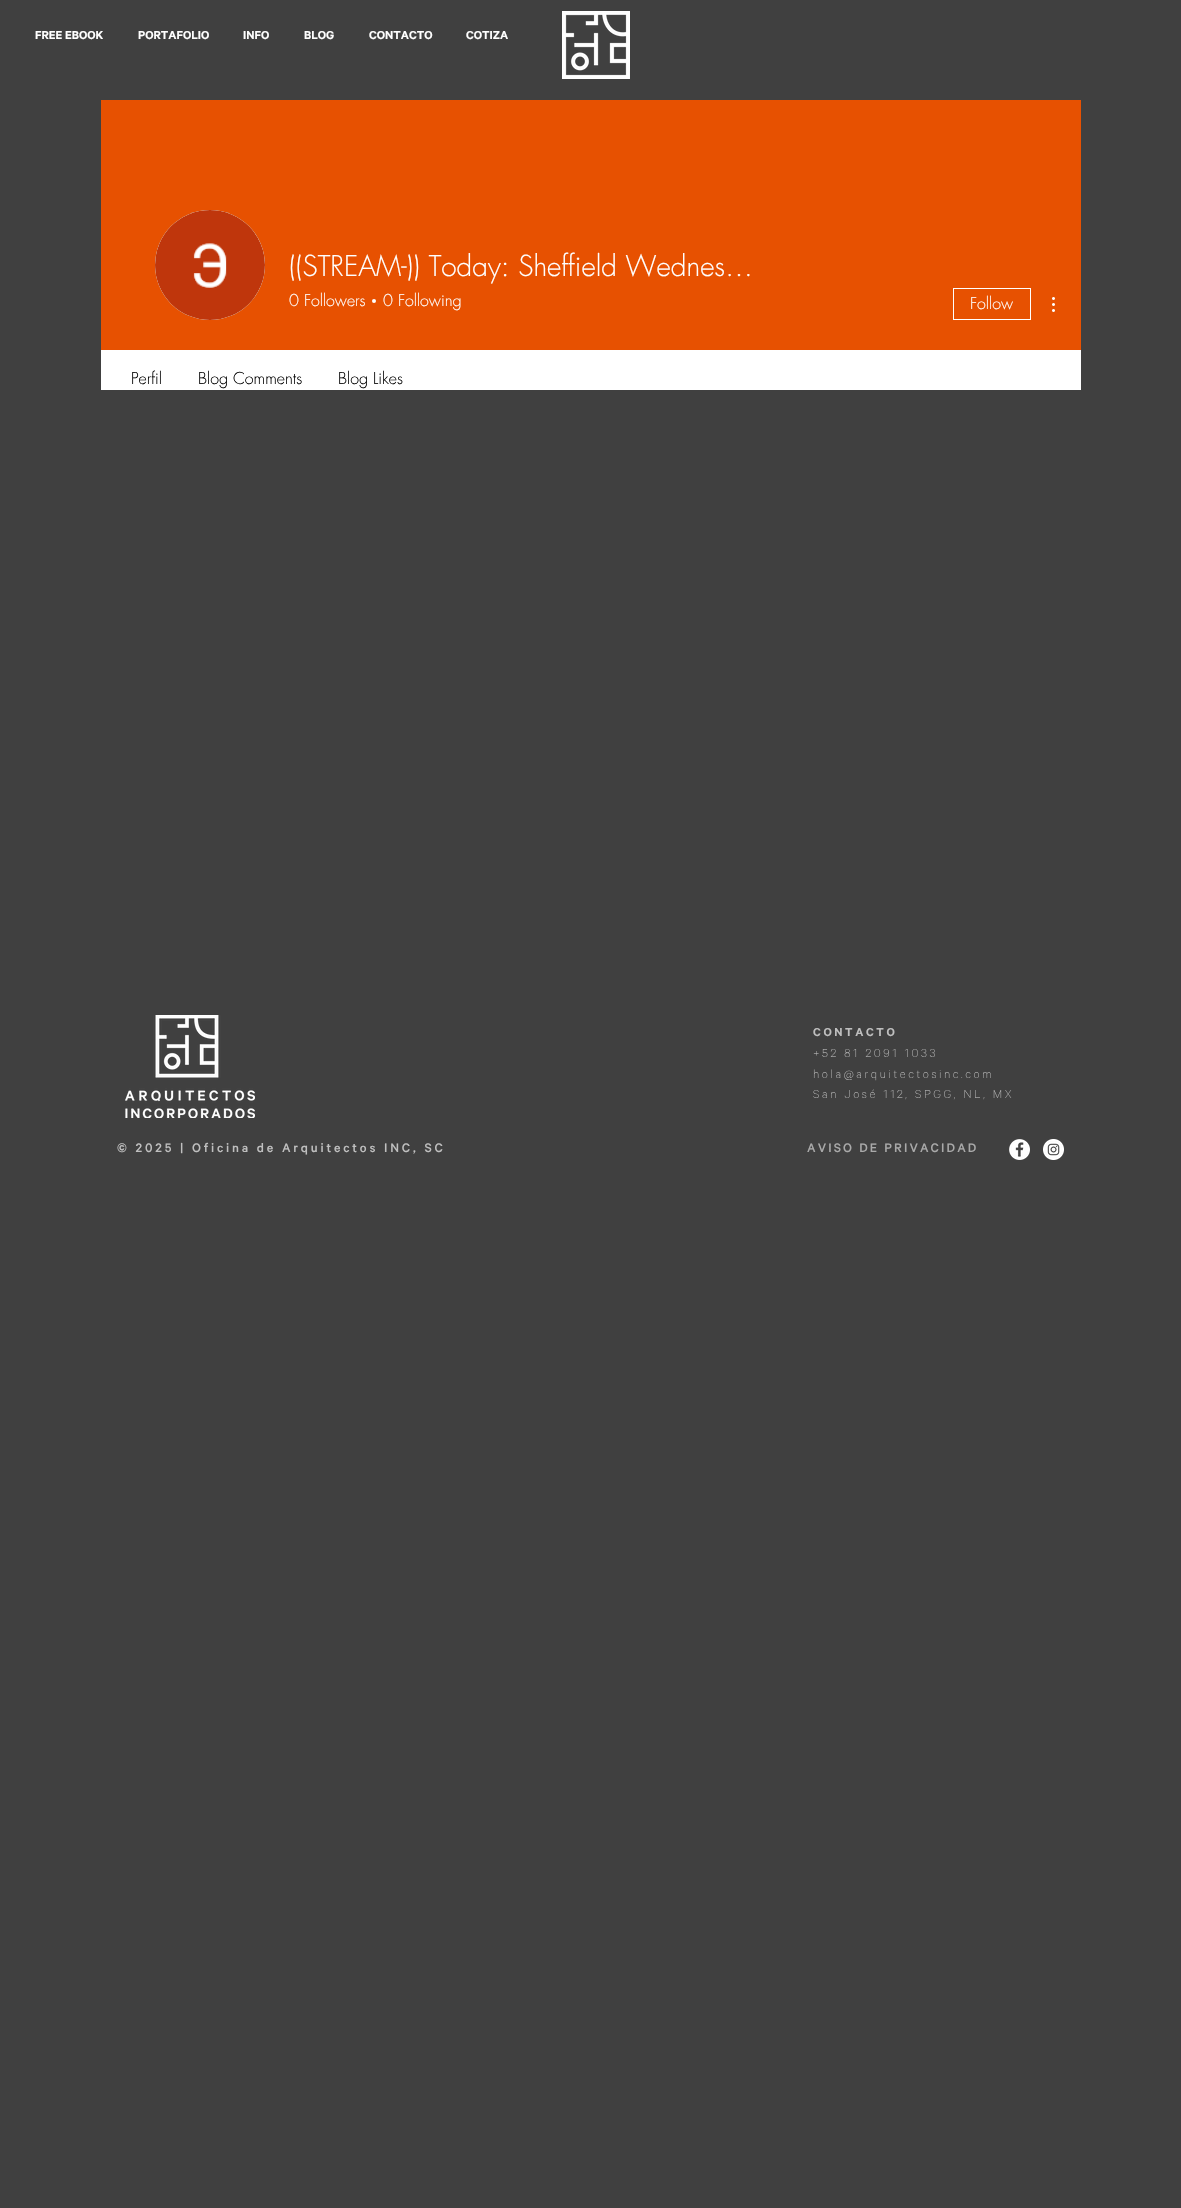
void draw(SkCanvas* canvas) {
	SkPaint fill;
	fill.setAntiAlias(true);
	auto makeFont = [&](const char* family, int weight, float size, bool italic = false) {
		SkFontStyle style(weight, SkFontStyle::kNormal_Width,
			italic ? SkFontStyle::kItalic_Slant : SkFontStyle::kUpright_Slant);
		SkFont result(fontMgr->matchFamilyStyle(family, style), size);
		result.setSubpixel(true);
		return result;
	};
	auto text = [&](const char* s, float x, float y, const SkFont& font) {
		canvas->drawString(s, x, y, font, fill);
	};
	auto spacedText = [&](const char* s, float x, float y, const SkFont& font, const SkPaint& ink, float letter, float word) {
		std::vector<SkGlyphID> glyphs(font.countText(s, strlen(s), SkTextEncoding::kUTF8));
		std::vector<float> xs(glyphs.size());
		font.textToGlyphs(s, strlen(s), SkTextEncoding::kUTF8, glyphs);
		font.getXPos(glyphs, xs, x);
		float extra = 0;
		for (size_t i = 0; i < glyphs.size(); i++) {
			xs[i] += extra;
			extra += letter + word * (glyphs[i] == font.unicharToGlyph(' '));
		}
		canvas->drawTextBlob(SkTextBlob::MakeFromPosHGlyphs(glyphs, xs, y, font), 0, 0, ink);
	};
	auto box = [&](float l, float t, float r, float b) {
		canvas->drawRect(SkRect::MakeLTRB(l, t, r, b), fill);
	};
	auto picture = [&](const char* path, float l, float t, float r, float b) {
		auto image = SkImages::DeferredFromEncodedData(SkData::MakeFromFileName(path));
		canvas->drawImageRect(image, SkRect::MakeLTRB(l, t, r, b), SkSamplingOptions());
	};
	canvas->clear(0xFF404040);
	picture("image0.png", 562, 11, 630, 79);
	fill.setColor(0xFFE75101);
	box(101, 100, 1081, 350);
	fill.setColor(0xFFD8D8D8);
	canvas->drawCircle(210, 265, 55, fill);
	picture("image1.png", 155, 210, 265, 320);
	fill.setColor(0xFFFFFFFF);
	canvas->drawCircle(374, 301, 2, fill);
	fill.setStyle(SkPaint::kStroke_Style);
	fill.setStrokeWidth(1);
	canvas->drawRect(SkRect::MakeLTRB(953.5f, 288.5f, 1030.5f, 319.5f), fill);
	picture("image2.png", 1052, 297, 1055, 312);
	fill.setStyle(SkPaint::kFill_Style);
	box(101, 350, 1081, 390);
	picture("image3.png", 125, 1015, 255, 1118);
	picture("image4.png", 1009, 1139, 1030, 1160);
	picture("image5.png", 1043, 1139, 1064, 1160);
	auto font1 = makeFont("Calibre", 600, 13);
	text("FREE EBOOK", 35, 39, font1);
	text("PORTAFOLIO", 138, 39, font1);
	text("INFO", 243, 39, font1);
	text("BLOG", 304, 39, font1);
	text("CONTACTO", 369, 39, font1);
	text("COTIZA", 466, 39, font1);
	auto font2 = makeFont("futura", 300, 28);
	text("((STREAM-)) Today: Sheffield Wednes…", 289, 276, font2);
	auto font3 = makeFont("futura", 300, 16);
	text("0 Followers", 289, 306, font3);
	text("0 Following", 383, 306, font3);
	text("Follow", 970, 309, font3);
	fill.setColor(0xFF000000);
	text("Perfil", 131, 384, font3);
	text("Blog Comments", 198, 384, font3);
	text("Blog Likes", 338, 384, font3);
	fill.setColor(0xFFBFBFBF);
	spacedText("CONTACTO", 813, 1036, font1, fill, 2.6f, 0);
	auto font4 = makeFont("Calibre", 100, 13);
	spacedText("+52 81 2091 1033", 813, 1057, font4, fill, 2.6f, 0);
	spacedText("hola@arquitectosinc.com", 813, 1078, font4, fill, 2.6f, 0);
	spacedText("San José 112, SPGG, NL, MX", 813, 1098, font4, fill, 2.6f, 0);
	auto font5 = makeFont("Calibre", 500, 14);
	spacedText("© 2025 | Oficina de Arquitectos INC, SC", 117, 1152, font5, fill, 2.8f, 0);
	fill.setColor(0xFFA9A9A9);
	spacedText("AVISO DE PRIVACIDAD", 807, 1152, font5, fill, 2.1f, 0);
}
